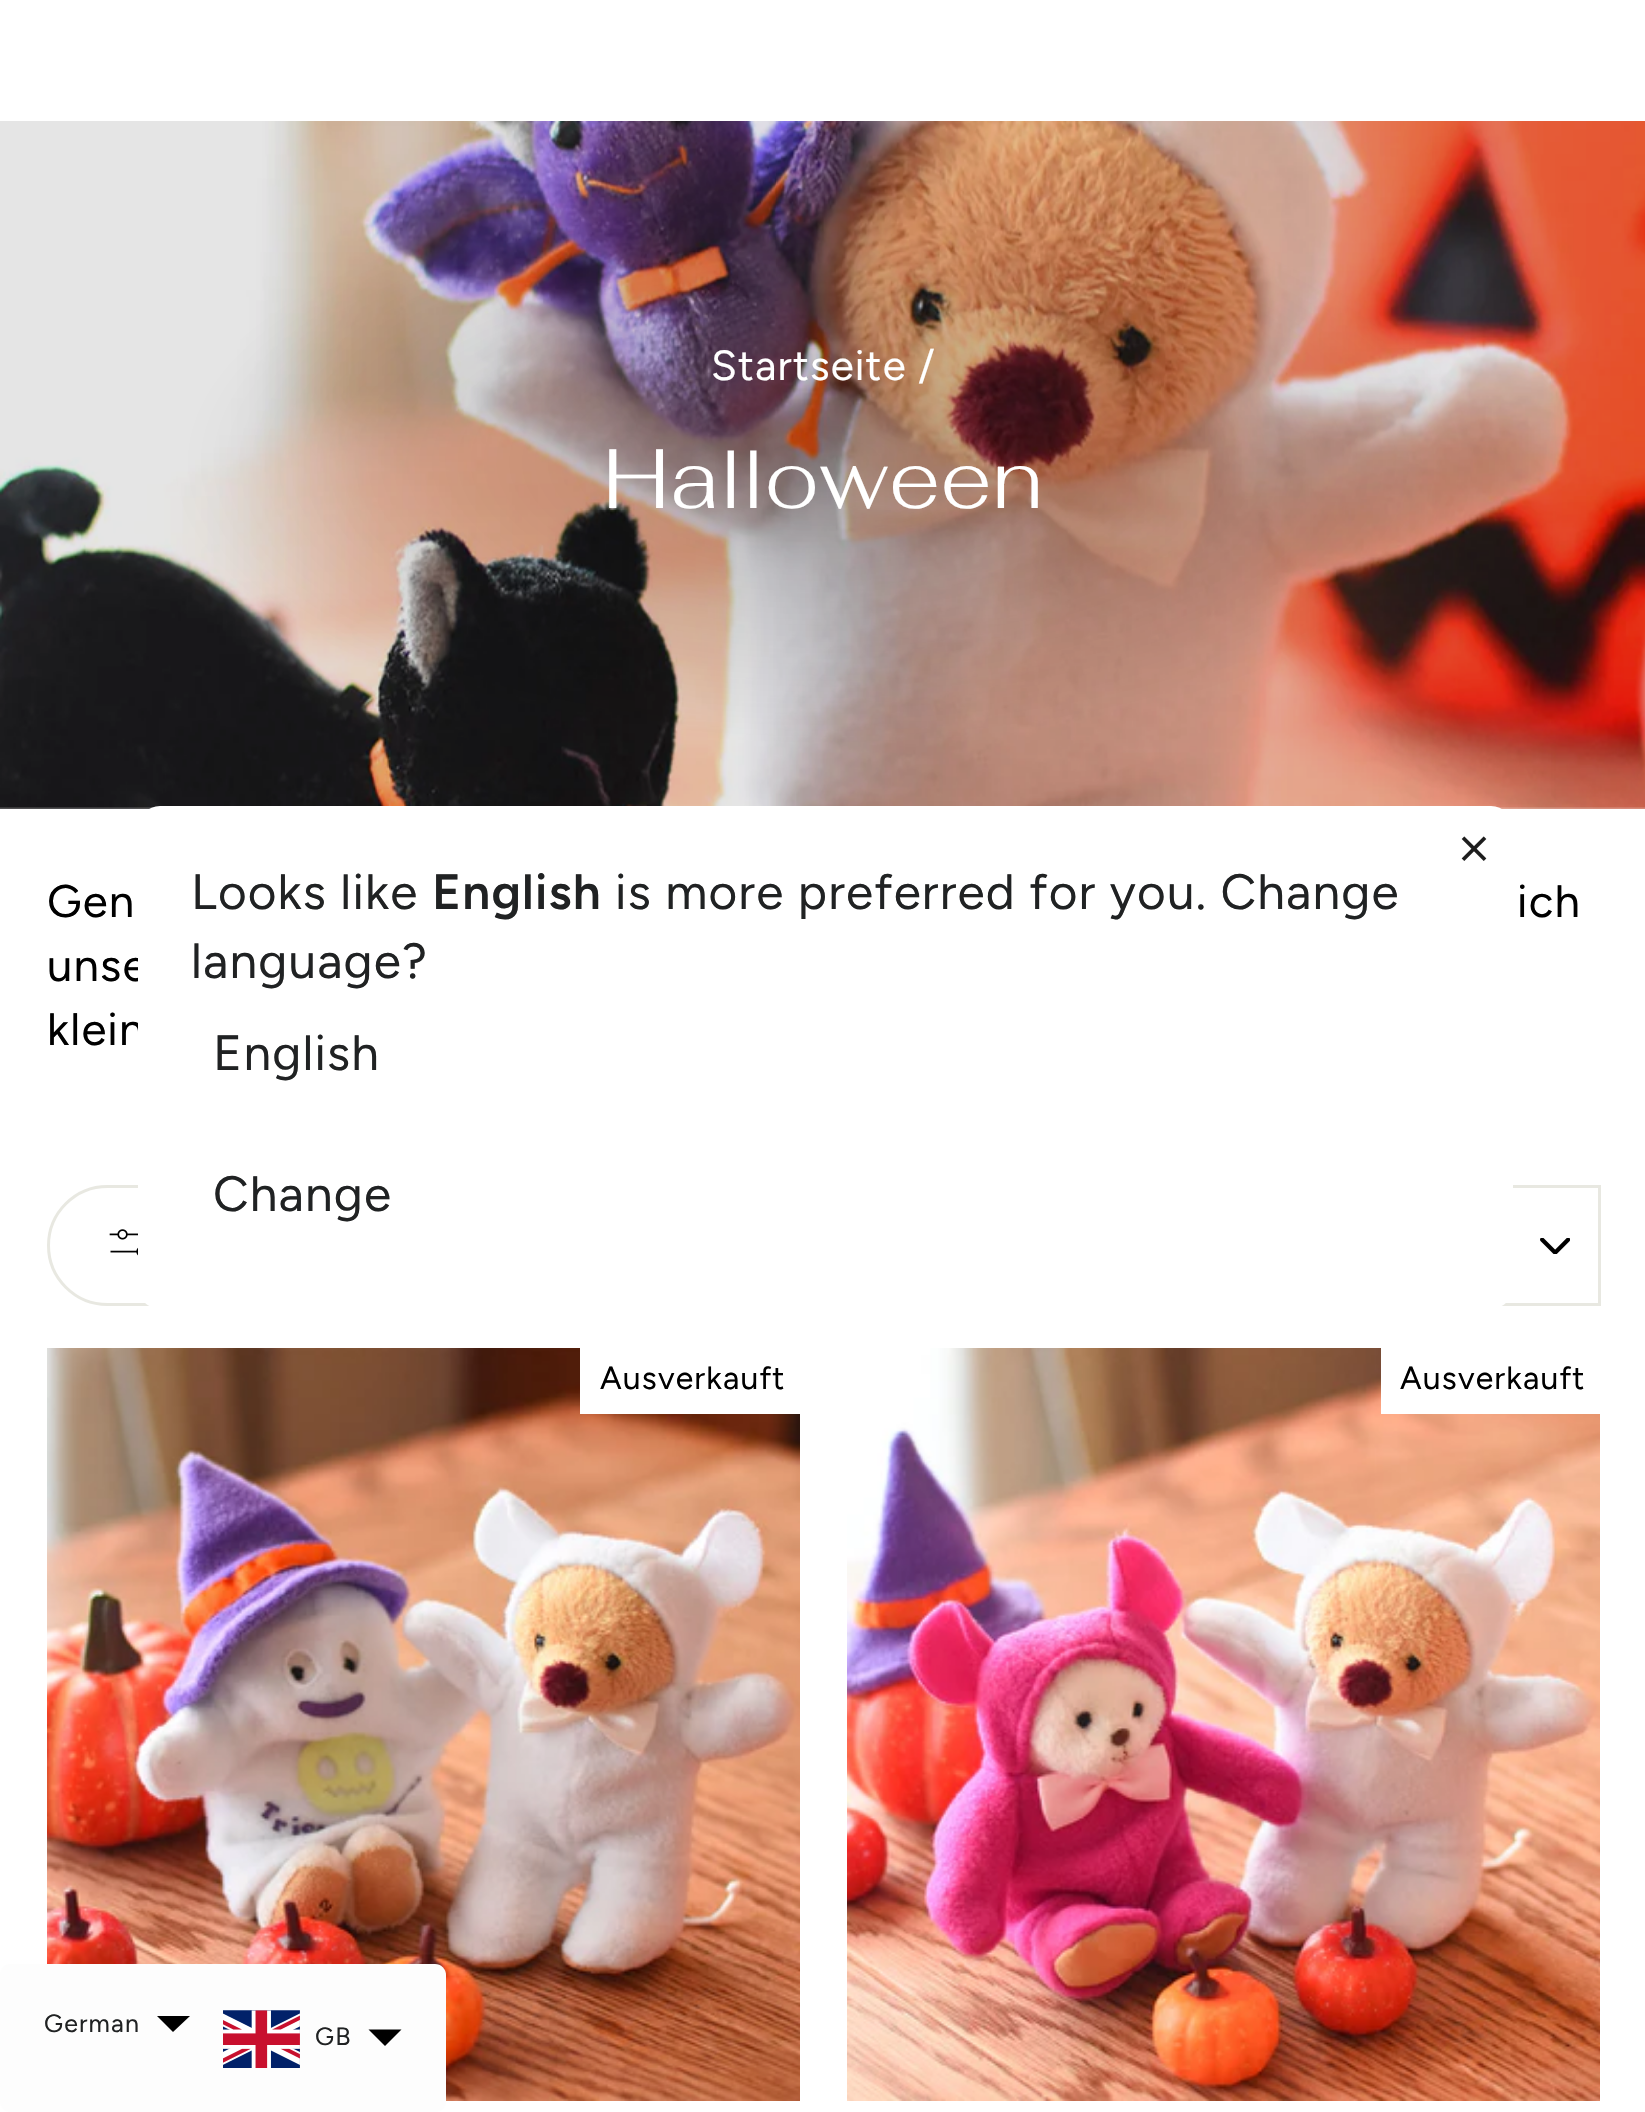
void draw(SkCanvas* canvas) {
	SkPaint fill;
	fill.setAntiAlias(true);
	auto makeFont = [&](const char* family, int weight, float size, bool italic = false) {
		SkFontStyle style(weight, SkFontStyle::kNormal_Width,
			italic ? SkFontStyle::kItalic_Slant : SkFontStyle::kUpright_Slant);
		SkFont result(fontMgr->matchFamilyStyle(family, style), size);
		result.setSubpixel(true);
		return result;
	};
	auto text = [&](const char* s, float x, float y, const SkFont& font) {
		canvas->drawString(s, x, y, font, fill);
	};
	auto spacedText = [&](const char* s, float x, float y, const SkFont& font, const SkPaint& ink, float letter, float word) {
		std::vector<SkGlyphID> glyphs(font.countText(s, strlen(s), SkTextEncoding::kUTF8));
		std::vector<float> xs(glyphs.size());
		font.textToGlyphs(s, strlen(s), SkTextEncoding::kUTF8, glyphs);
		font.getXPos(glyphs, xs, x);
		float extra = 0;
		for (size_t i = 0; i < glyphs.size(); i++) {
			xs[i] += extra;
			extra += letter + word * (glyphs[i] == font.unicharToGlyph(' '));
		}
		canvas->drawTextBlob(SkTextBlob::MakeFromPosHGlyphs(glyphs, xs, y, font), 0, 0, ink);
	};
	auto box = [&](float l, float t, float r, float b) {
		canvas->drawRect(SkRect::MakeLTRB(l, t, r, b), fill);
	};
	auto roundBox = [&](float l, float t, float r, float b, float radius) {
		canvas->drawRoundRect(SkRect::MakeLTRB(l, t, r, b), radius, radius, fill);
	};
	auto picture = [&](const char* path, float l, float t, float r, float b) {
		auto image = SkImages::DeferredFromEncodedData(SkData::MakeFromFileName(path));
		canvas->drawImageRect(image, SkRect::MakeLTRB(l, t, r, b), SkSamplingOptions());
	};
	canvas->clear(0xFFFFFFFF);
	picture("image0.png", 0, 121, 1645, 809);
	fill.setStyle(SkPaint::kStroke_Style);
	fill.setStrokeWidth(3);
	fill.setColor(0xFFE8E8E1);
	canvas->drawRoundRect(SkRect::MakeLTRB(48.5f, 1186.5f, 790.5f, 1304.5f), 59, 59, fill);
	picture("image1.png", 109, 1229, 138, 1256);
	picture("image2.png", 1540, 1238, 1570, 1254);
	canvas->drawRect(SkRect::MakeLTRB(856.5f, 1186.5f, 1599.5f, 1304.5f), fill);
	picture("image3.png", 47, 1348, 800, 2101);
	fill.setStyle(SkPaint::kFill_Style);
	fill.setColor(0xFFFFFFFF);
	box(580, 1348, 800, 1414);
	picture("image4.png", 847, 1348, 1600, 2101);
	box(1381, 1348, 1600, 1414);
	fill.setColor(0xFFFDFDFD);
	roundBox(0, 1964, 446, 2112, 11);
	fill.setColor(0xFF000000);
	canvas->drawPath(SkPathBuilder().moveTo(157, 2016).lineTo(190, 2016).lineTo(173, 2032).close().detach(), fill);
	picture("image6.png", 223, 2010, 300, 2068);
	canvas->drawPath(SkPathBuilder().moveTo(368.5f, 2029.5f).lineTo(401.5f, 2029.5f).lineTo(385, 2046).close().detach(), fill);
	auto font1 = makeFont("Figtree", 400, 42);
	fill.setColor(0xFFFFFFFF);
	spacedText("Startseite /", 711, 380, font1, fill, 1.15f, 0);
	auto font2 = makeFont("Fahkwang", 300, 84);
	text("Halloween", 603, 508, font2);
	auto font3 = makeFont("Figtree", 400, 45.5f);
	fill.setColor(0xFF000000);
	spacedText("Gen", 47, 917, font3, fill, 1.15f, 0);
	spacedText("ich", 1517, 917, font3, fill, 1.15f, 0);
	spacedText("unse", 47, 981, font3, fill, 1.15f, 0);
	spacedText("klein", 47, 1045, font3, fill, 1.15f, 0);
	auto font4 = makeFont("Figtree", 400, 32);
	spacedText("Ausverkauft", 600, 1389, font4, fill, 1.15f, 0);
	spacedText("Ausverkauft", 1400, 1389, font4, fill, 1.15f, 0);
	fill.setColor(0xFFFFFFFF);
	roundBox(138, 806, 1513, 1309, 22);
	picture("image5.png", 1461, 836, 1487, 861);
	auto font5 = makeFont("Figtree", 400, 49.5f);
	fill.setColor(0xFF202223);
	spacedText("Looks like", 191, 909, font5, fill, 1.15f, 0);
	auto font6 = makeFont("Figtree", 600, 49.5f);
	spacedText("English", 432, 909, font6, fill, 1.15f, 0);
	spacedText("is more preferred for you. Change", 615, 909, font5, fill, 1.15f, 0);
	spacedText("language?", 191, 978, font5, fill, 1.15f, 0);
	spacedText("English", 213, 1070, font5, fill, 1.15f, 0);
	spacedText("Change", 213, 1211, font5, fill, 1.15f, 0);
	auto font7 = makeFont("Figtree", 400, 25);
	spacedText("German", 44, 2032, font7, fill, 1.15f, 0);
	spacedText("GB", 315, 2045, font7, fill, 1.15f, 0);
}
